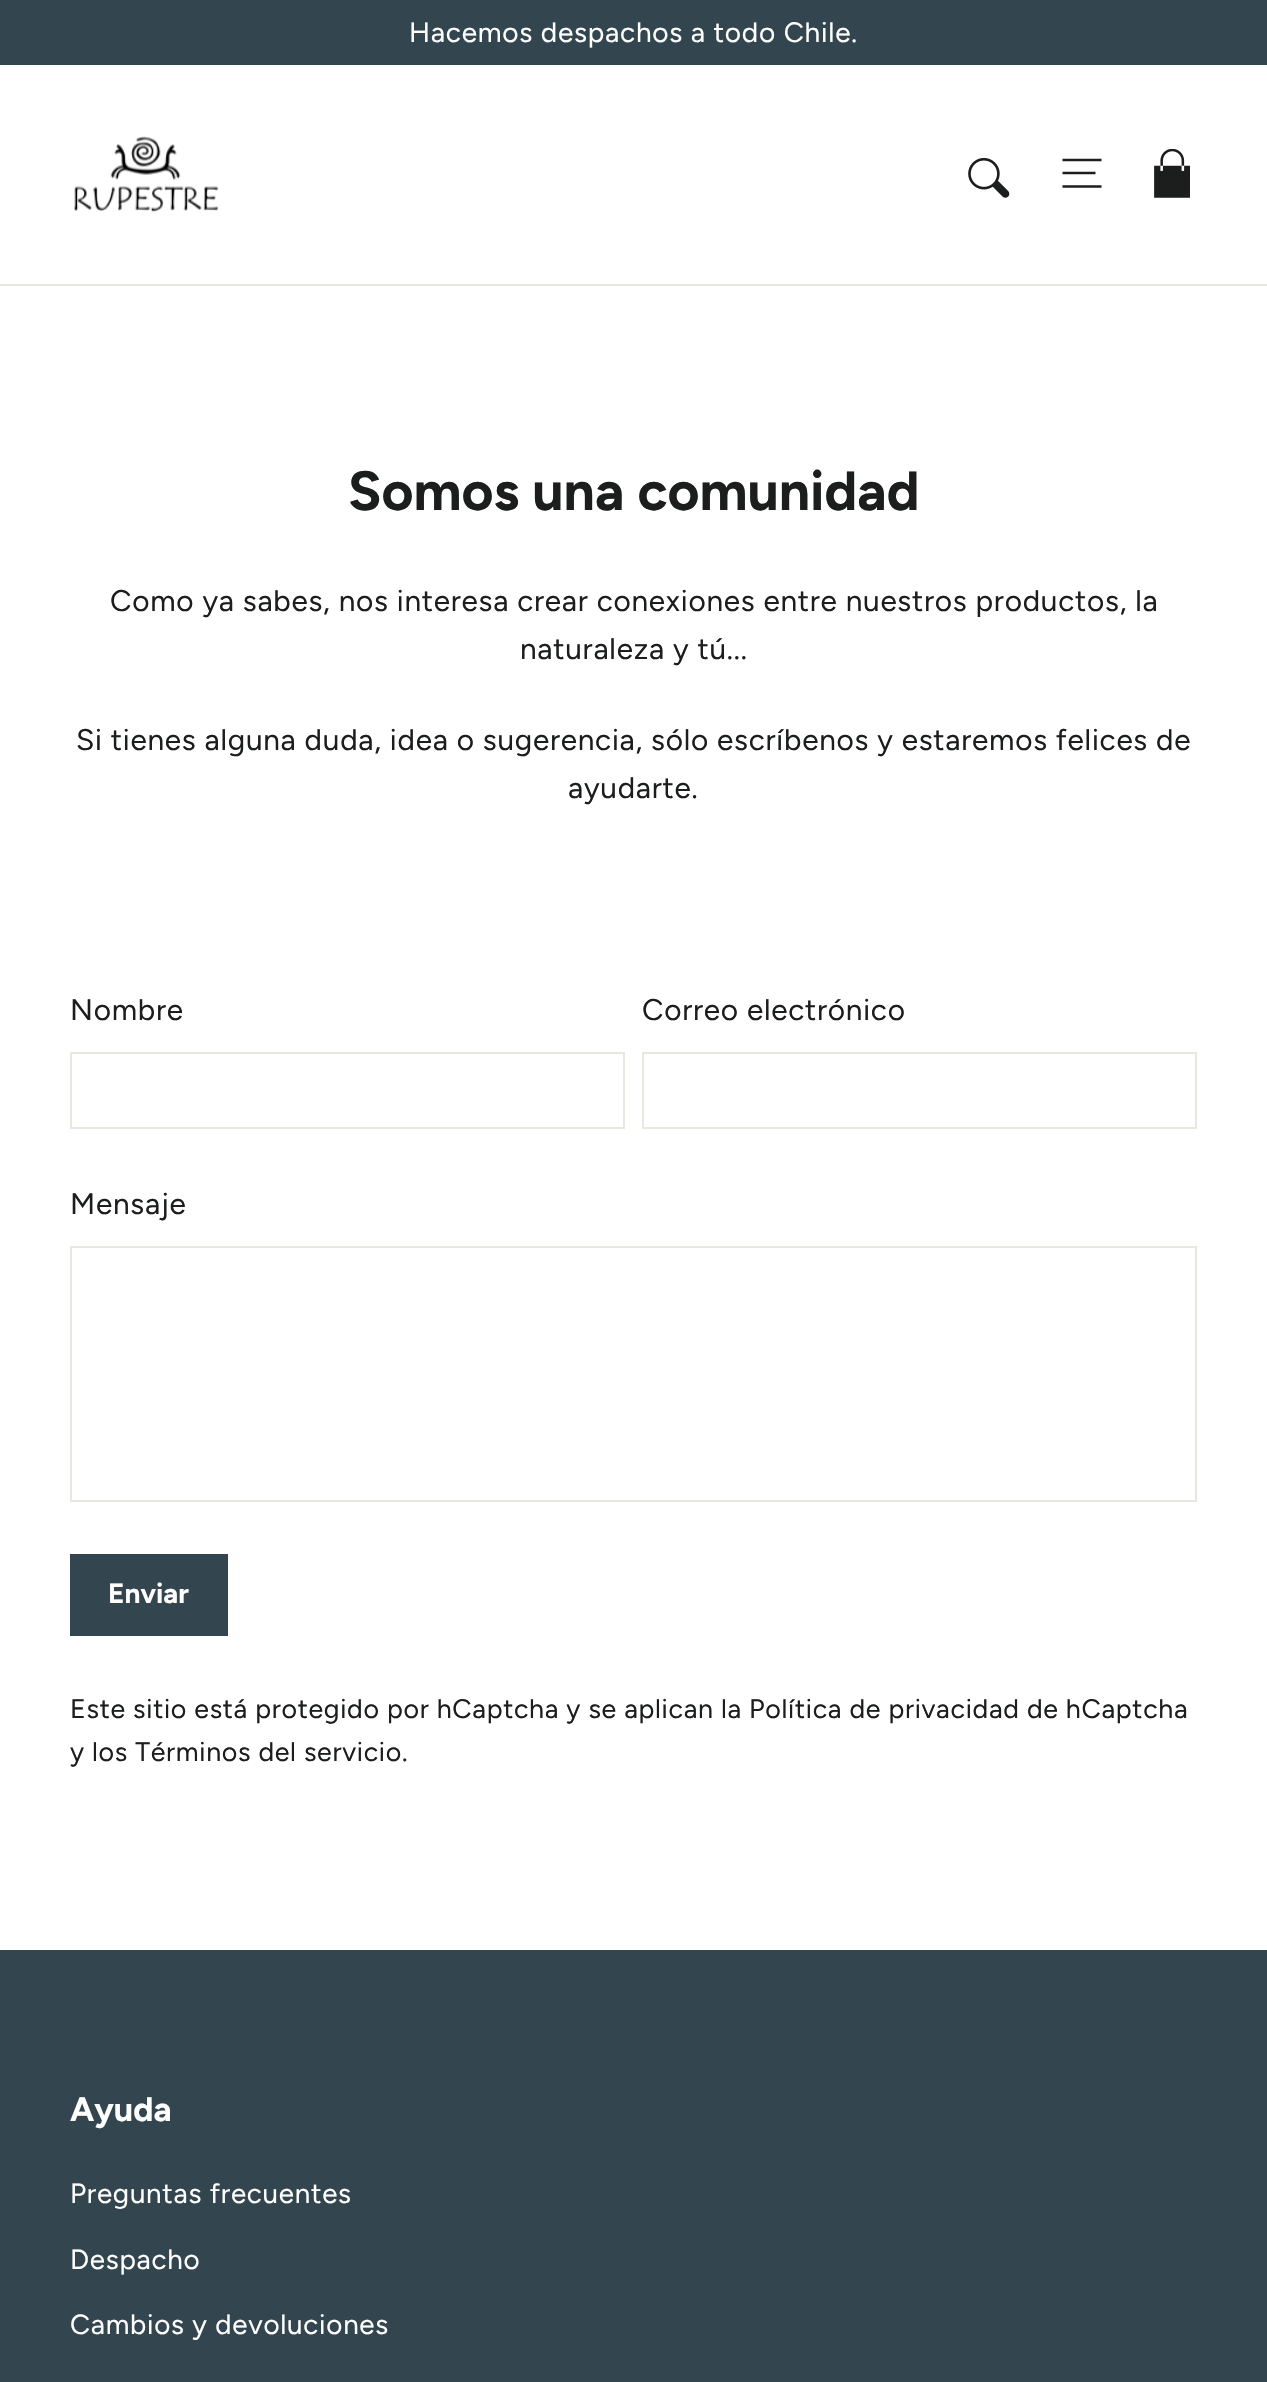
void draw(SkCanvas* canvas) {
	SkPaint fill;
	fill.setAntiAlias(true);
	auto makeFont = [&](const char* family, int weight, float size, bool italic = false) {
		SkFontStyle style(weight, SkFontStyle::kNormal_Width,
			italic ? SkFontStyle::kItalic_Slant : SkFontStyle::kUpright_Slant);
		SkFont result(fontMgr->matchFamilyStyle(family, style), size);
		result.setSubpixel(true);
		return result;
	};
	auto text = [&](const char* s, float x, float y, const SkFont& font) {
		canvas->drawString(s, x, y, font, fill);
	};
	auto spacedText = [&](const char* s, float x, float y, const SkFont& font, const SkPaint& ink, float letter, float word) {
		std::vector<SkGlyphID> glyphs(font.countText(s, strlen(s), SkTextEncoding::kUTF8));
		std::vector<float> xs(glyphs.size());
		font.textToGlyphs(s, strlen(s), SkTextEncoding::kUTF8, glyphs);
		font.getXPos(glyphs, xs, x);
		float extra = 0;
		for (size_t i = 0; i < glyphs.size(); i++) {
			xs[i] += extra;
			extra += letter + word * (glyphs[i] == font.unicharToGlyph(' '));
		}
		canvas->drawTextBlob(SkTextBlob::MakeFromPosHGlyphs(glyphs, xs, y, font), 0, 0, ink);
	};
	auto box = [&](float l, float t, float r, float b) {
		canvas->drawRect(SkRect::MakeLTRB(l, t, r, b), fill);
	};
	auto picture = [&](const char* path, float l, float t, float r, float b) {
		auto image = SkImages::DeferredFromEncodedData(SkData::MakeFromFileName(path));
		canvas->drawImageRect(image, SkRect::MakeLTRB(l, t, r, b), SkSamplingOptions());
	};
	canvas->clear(0xFFFFFFFF);
	fill.setColor(0xFF33454E);
	box(0, 0, 1267, 65);
	fill.setColor(0xFFE8E8E1);
	box(0, 284, 1267, 286);
	picture("image0.png", 74, 136, 219, 212);
	picture("image1.png", 968, 157, 1010, 198);
	fill.setStyle(SkPaint::kStroke_Style);
	fill.setStrokeWidth(2.3f);
	fill.setColor(0xFF1C1D1D);
	canvas->drawPath(SkPathBuilder().moveTo(1062.5f, 160).lineTo(1101.5f, 160).moveTo(1062.5f, 173).lineTo(1095.5f, 173).moveTo(1062.5f, 186.5f).lineTo(1101.5f, 186.5f).detach(), fill);
	picture("image2.png", 1154, 149, 1190, 198);
	fill.setStrokeWidth(2);
	fill.setColor(0xFFE8E8E1);
	canvas->drawRect(SkRect::MakeLTRB(71, 1053, 624, 1128), fill);
	canvas->drawRect(SkRect::MakeLTRB(643, 1053, 1196, 1128), fill);
	canvas->drawRect(SkRect::MakeLTRB(71, 1247, 1196, 1501), fill);
	fill.setStyle(SkPaint::kFill_Style);
	fill.setColor(0xFF33454E);
	box(70, 1554, 228, 1636);
	box(0, 1950, 1267, 2382);
	auto font1 = makeFont("Figtree", 400, 28);
	fill.setColor(0xFFFFFFFF);
	spacedText("Hacemos despachos a todo Chile.", 409, 42, font1, fill, 0.75f, 0);
	auto font2 = makeFont("Figtree", 700, 55.1f);
	fill.setColor(0xFF1C1D1D);
	text("Somos una comunidad", 348, 510, font2);
	auto font3 = makeFont("Figtree", 400, 29.75f);
	spacedText("Como ya sabes, nos interesa crear conexiones entre nuestros productos, la", 110, 611, font3, fill, 0.75f, 0);
	spacedText("naturaleza y tú...", 520, 659, font3, fill, 0.75f, 0);
	spacedText("Si tienes alguna duda, idea o sugerencia, sólo escríbenos y estaremos felices de", 76, 750, font3, fill, 0.75f, 0);
	spacedText("ayudarte.", 568, 798, font3, fill, 0.75f, 0);
	spacedText("Nombre", 70, 1020, font3, fill, 0.75f, 0);
	spacedText("Correo electrónico", 642, 1020, font3, fill, 0.75f, 0);
	spacedText("Mensaje", 70, 1214, font3, fill, 0.75f, 0);
	auto font4 = makeFont("Figtree", 700, 28);
	fill.setColor(0xFFFFFFFF);
	text("Enviar", 108, 1603, font4);
	auto font5 = makeFont("Figtree", 400, 26.8f);
	fill.setColor(0xFF1C1D1D);
	spacedText("Este sitio está protegido por hCaptcha y se aplican la Política de privacidad de hCaptcha", 70, 1718, font5, fill, 0.67f, 0);
	spacedText("y los Términos del servicio.", 70, 1761, font5, fill, 0.67f, 0);
	auto font6 = makeFont("Figtree", 700, 34);
	fill.setColor(0xFFFFFFFF);
	text("Ayuda", 70, 2121, font6);
	auto font7 = makeFont("Figtree", 400, 27.75f);
	spacedText("Preguntas frecuentes", 70, 2203, font7, fill, 0.75f, 0);
	spacedText("Despacho", 70, 2269, font7, fill, 0.75f, 0);
	spacedText("Cambios y devoluciones", 70, 2334, font7, fill, 0.75f, 0);
}
